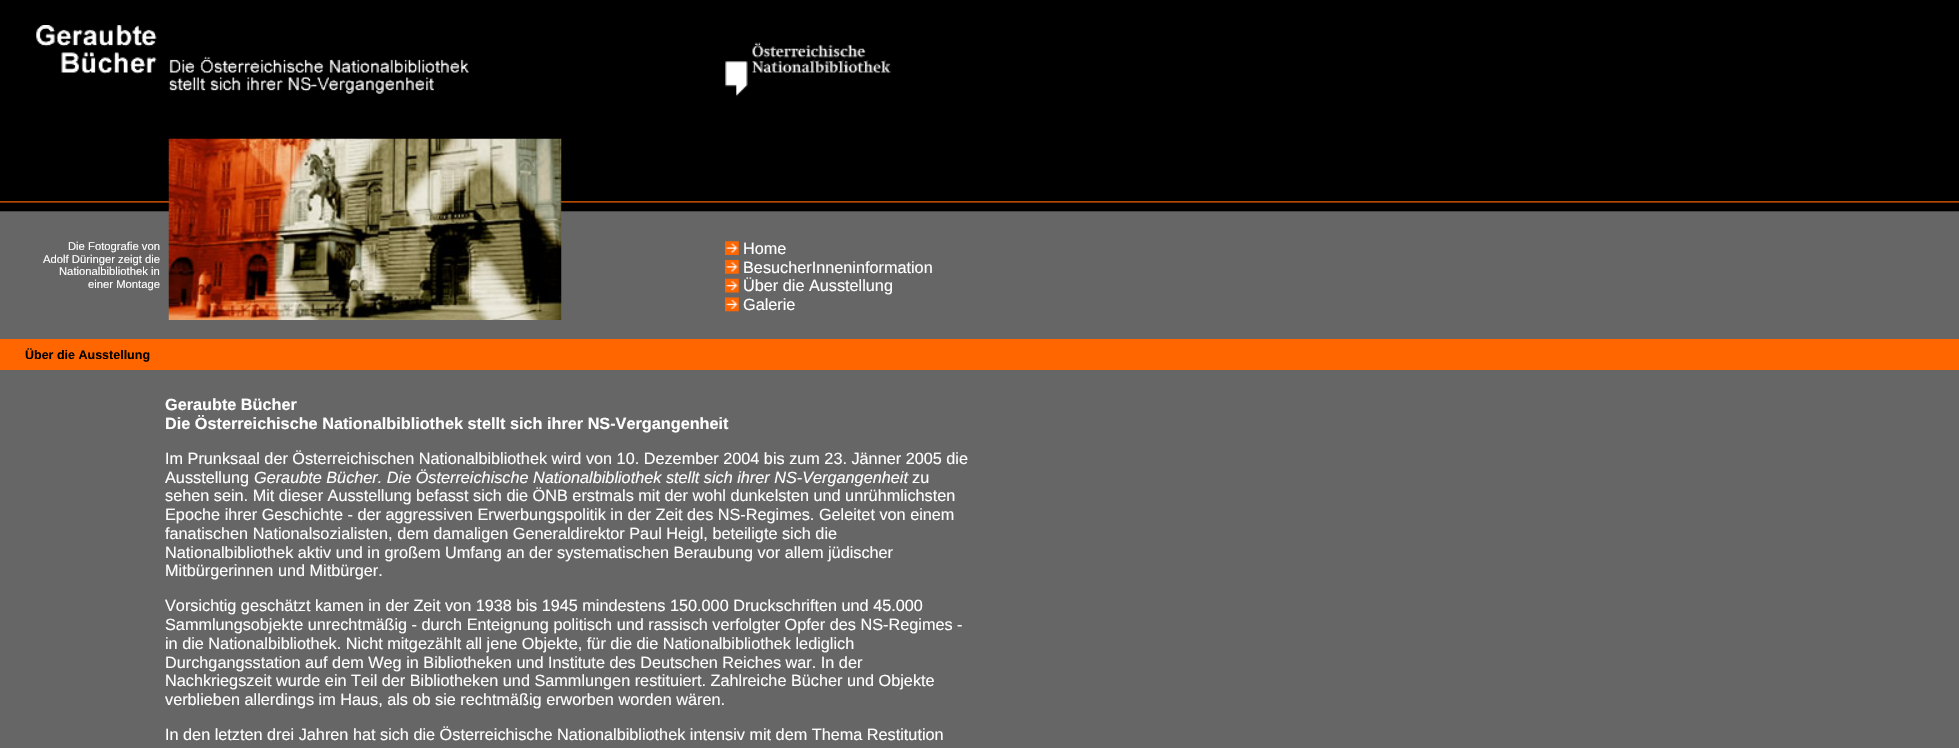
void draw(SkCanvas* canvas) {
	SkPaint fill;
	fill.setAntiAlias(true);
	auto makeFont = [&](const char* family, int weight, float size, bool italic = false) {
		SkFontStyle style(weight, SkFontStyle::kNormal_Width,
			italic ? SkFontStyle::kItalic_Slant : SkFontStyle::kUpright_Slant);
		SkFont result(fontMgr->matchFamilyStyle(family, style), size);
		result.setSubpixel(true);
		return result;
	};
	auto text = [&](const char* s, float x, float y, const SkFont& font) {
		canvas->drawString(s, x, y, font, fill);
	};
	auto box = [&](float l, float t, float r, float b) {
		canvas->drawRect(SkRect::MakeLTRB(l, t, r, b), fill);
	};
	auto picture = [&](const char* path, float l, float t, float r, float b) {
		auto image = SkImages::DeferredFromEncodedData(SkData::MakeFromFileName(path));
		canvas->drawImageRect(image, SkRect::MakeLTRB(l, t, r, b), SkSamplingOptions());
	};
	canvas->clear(0xFF666666);
	picture("image0.png", 0, 0, 1959, 212);
	picture("image1.png", 36, 25, 469, 94);
	picture("image2.png", 725, 42, 892, 97);
	picture("image3.png", 168, 138, 562, 320);
	picture("image4.png", 725, 241, 739, 255);
	picture("image5.png", 725, 260, 739, 274);
	picture("image6.png", 725, 278, 739, 293);
	picture("image7.png", 725, 297, 739, 312);
	fill.setColor(0xFFFF6600);
	box(0, 339, 1959, 370);
	auto font1 = makeFont("Liberation Sans", 400, 11.25f);
	fill.setColor(0xFFFFFFFF);
	text("Die Fotografie von", 68, 250, font1);
	text("Adolf Düringer zeigt die", 43, 263, font1);
	text("Nationalbibliothek in", 59, 275, font1);
	text("einer Montage", 88, 288, font1);
	auto font2 = makeFont("Liberation Sans", 400, 16.25f);
	text("Home", 743, 254, font2);
	text("BesucherInneninformation", 743, 273, font2);
	text("Über die Ausstellung", 743, 291, font2);
	text("Galerie", 743, 310, font2);
	auto font3 = makeFont("Liberation Sans", 700, 12.5f);
	fill.setColor(0xFF000000);
	text("Über die Ausstellung", 25, 359, font3);
	auto font4 = makeFont("Liberation Sans", 700, 16.25f);
	fill.setColor(0xFFFFFFFF);
	text("Geraubte Bücher", 165, 410, font4);
	text("Die Österreichische Nationalbibliothek stellt sich ihrer NS-Vergangenheit", 165, 429, font4);
	text("Im Prunksaal der Österreichischen Nationalbibliothek wird von 10. Dezember 2004 bis zum 23. Jänner 2005 die", 165, 464, font2);
	text("Ausstellung", 165, 483, font2);
	auto font5 = makeFont("Liberation Sans", 400, 16.25f, true);
	text("Geraubte Bücher. Die Österreichische Nationalbibliothek stellt sich ihrer NS-Vergangenheit", 254, 483, font5);
	text("zu", 912, 483, font2);
	text("sehen sein. Mit dieser Ausstellung befasst sich die ÖNB erstmals mit der wohl dunkelsten und unrühmlichsten", 165, 501, font2);
	text("Epoche ihrer Geschichte - der aggressiven Erwerbungspolitik in der Zeit des NS-Regimes. Geleitet von einem", 165, 520, font2);
	text("fanatischen Nationalsozialisten, dem damaligen Generaldirektor Paul Heigl, beteiligte sich die", 165, 539, font2);
	text("Nationalbibliothek aktiv und in großem Umfang an der systematischen Beraubung vor allem jüdischer", 165, 558, font2);
	text("Mitbürgerinnen und Mitbürger.", 165, 576, font2);
	text("Vorsichtig geschätzt kamen in der Zeit von 1938 bis 1945 mindestens 150.000 Druckschriften und 45.000", 165, 611, font2);
	text("Sammlungsobjekte unrechtmäßig - durch Enteignung politisch und rassisch verfolgter Opfer des NS-Regimes -", 165, 630, font2);
	text("in die Nationalbibliothek. Nicht mitgezählt all jene Objekte, für die die Nationalbibliothek lediglich", 165, 649, font2);
	text("Durchgangsstation auf dem Weg in Bibliotheken und Institute des Deutschen Reiches war. In der", 165, 668, font2);
	text("Nachkriegszeit wurde ein Teil der Bibliotheken und Sammlungen restituiert. Zahlreiche Bücher und Objekte", 165, 686, font2);
	text("verblieben allerdings im Haus, als ob sie rechtmäßig erworben worden wären.", 165, 705, font2);
	text("In den letzten drei Jahren hat sich die Österreichische Nationalbibliothek intensiv mit dem Thema Restitution", 165, 740, font2);
}
